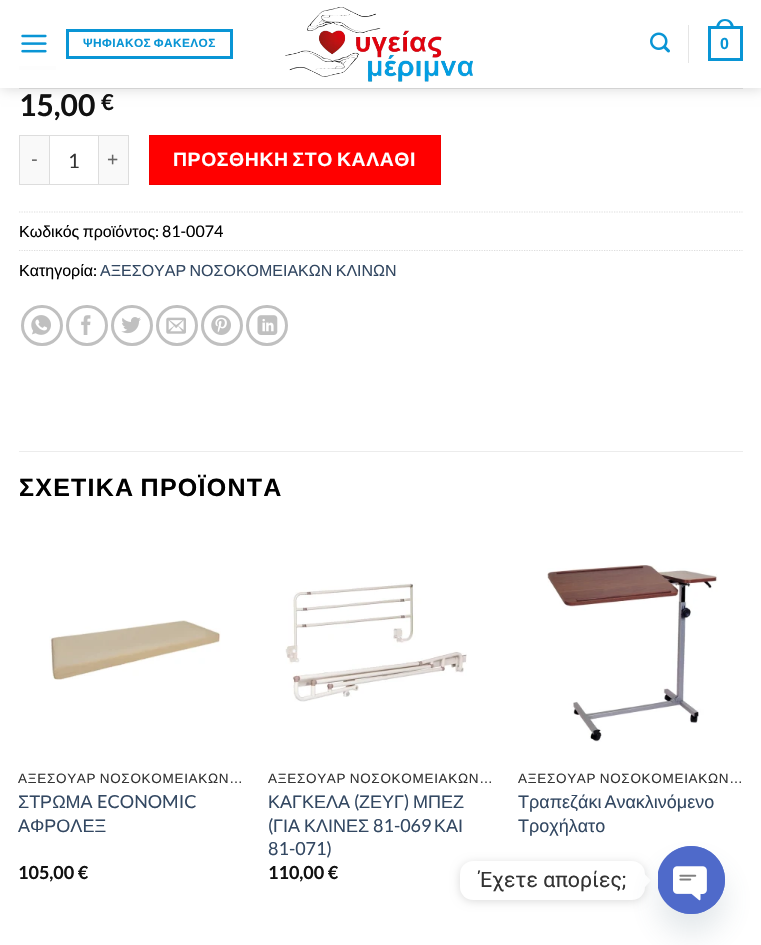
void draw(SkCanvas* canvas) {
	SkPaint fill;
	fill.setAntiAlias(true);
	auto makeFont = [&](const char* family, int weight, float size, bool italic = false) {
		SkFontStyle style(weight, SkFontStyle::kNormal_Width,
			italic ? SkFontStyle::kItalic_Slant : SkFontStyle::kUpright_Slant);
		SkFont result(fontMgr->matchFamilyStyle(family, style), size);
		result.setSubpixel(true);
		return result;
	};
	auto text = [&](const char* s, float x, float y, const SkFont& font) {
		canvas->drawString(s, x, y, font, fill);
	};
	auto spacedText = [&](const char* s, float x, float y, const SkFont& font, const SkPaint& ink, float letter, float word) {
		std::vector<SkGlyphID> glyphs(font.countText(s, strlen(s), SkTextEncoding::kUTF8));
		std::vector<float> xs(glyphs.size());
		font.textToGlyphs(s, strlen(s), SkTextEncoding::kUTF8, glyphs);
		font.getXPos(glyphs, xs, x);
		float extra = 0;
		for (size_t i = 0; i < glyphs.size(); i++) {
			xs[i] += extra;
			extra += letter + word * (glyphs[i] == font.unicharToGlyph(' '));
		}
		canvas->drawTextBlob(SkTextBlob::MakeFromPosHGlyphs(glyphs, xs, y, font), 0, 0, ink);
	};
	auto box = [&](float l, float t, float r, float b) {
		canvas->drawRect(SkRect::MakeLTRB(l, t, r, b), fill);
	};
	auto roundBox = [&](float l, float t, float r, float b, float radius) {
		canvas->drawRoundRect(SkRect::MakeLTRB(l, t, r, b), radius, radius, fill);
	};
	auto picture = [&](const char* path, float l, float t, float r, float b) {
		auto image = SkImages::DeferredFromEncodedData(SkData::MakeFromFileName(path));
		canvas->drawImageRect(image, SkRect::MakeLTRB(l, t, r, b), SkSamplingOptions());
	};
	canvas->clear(0xFFFFFFFF);
	fill.setColor(0xFFE6E6E6);
	box(19, 66, 56, 70);
	canvas->save();
	canvas->clipPath(SkPathBuilder(SkPathFillType::kEvenOdd).moveTo(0, 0).lineTo(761, 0).lineTo(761, 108).lineTo(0, 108).close().moveTo(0, 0).lineTo(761, 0).lineTo(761, 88).lineTo(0, 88).close().detach(), true);
	fill.setColor(0x26000000);
	fill.setMaskFilter(SkMaskFilter::MakeBlur(kNormal_SkBlurStyle, 6));
	canvas->drawRect(SkRect::MakeLTRB(1, 1, 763, 89), fill);
	fill.setMaskFilter(nullptr);
	canvas->restore();
	picture("image0.png", 21, 34, 47, 53);
	fill.setStyle(SkPaint::kStroke_Style);
	fill.setStrokeWidth(3);
	fill.setColor(0xFF0995D5);
	canvas->drawRect(SkRect::MakeLTRB(67.5f, 30.5f, 231.5f, 57.5f), fill);
	fill.setStyle(SkPaint::kFill_Style);
	fill.setColor(0xE6FFFFFF);
	box(0, 66, 761, 88);
	picture("image1.png", 285, 7, 473, 82);
	picture("image2.png", 650, 32, 670, 53);
	fill.setColor(0x1A000000);
	box(688, 25, 689, 63);
	fill.setStyle(SkPaint::kStroke_Style);
	fill.setColor(0xFF0995D5);
	canvas->drawRect(SkRect::MakeLTRB(709.5f, 27.5f, 741.5f, 59.5f), fill);
	fill.setStyle(SkPaint::kFill_Style);
	canvas->drawPath(SkPathBuilder(SkPathFillType::kEvenOdd).moveTo(725, 19).cubicTo(731, 19, 734, 23.5f, 734, 29).lineTo(716, 29).cubicTo(716, 23.5f, 719, 19, 725, 19).close().moveTo(725, 21).cubicTo(729.5f, 21, 731, 25, 731, 29).lineTo(719, 29).cubicTo(719, 25, 720.5f, 21, 725, 21).close().detach(), fill);
	fill.setColor(0xFFD3D3D3);
	box(19, 88, 743, 89);
	fill.setColor(0xFFF9F9F9);
	box(20, 136, 49, 184);
	fill.setColor(0xFFDDDDDD);
	box(19, 135, 49, 136);
	box(19, 184, 49, 185);
	box(19, 135, 20, 185);
	fill.setStyle(SkPaint::kStroke_Style);
	fill.setStrokeWidth(1);
	canvas->drawRect(SkRect::MakeLTRB(49.5f, 135.5f, 98.5f, 184.5f), fill);
	fill.setStyle(SkPaint::kFill_Style);
	fill.setColor(0xFFF9F9F9);
	box(99, 136, 128, 184);
	fill.setColor(0xFFDDDDDD);
	box(99, 135, 129, 136);
	box(128, 135, 129, 185);
	box(99, 184, 129, 185);
	fill.setColor(0xFFFF0000);
	canvas->drawRect(SkRect::MakeLTRB(149.5f, 135.5f, 440.5f, 184.5f), fill);
	fill.setStyle(SkPaint::kStroke_Style);
	fill.setColor(0xFFF20000);
	canvas->drawRect(SkRect::MakeLTRB(149.5f, 135.5f, 440.5f, 184.5f), fill);
	fill.setStrokeWidth(1.2f);
	fill.setColor(0xFFDDDDDD);
	fill.setPathEffect(SkDashPathEffect::Make({{1.25f, 1.25f}}, 0));
	canvas->drawPath(SkPathBuilder().moveTo(19, 212).lineTo(742.5f, 212).detach(), fill);
	fill.setPathEffect(nullptr);
	fill.setPathEffect(SkDashPathEffect::Make({{1.25f, 1.25f}}, 0));
	canvas->drawPath(SkPathBuilder().moveTo(19, 250.5f).lineTo(742.5f, 250.5f).detach(), fill);
	fill.setPathEffect(nullptr);
	fill.setStrokeWidth(3);
	fill.setColor(0xFFC0C0C0);
	canvas->drawRoundRect(SkRect::MakeLTRB(22.5f, 306.5f, 61.5f, 344.5f), 19, 19, fill);
	picture("image3.png", 31, 315, 51, 335);
	canvas->drawRoundRect(SkRect::MakeLTRB(67.5f, 306.5f, 106.5f, 344.5f), 19, 19, fill);
	picture("image4.png", 81, 315, 91, 335);
	canvas->drawRoundRect(SkRect::MakeLTRB(112.5f, 306.5f, 151.5f, 344.5f), 19, 19, fill);
	picture("image5.png", 121, 317, 141, 334);
	canvas->drawRoundRect(SkRect::MakeLTRB(157.5f, 306.5f, 196.5f, 344.5f), 19, 19, fill);
	picture("image6.png", 166, 317, 186, 334);
	canvas->drawRoundRect(SkRect::MakeLTRB(202.5f, 306.5f, 241.5f, 344.5f), 19, 19, fill);
	picture("image7.png", 211, 315, 231, 335);
	canvas->drawRoundRect(SkRect::MakeLTRB(247.5f, 306.5f, 286.5f, 344.5f), 19, 19, fill);
	picture("image8.png", 257, 315, 278, 335);
	fill.setStyle(SkPaint::kFill_Style);
	fill.setColor(0xFFECECEC);
	box(19, 451, 743, 452);
	picture("image9.png", 49, 620, 221, 680);
	picture("image10.png", 285, 583, 467, 702);
	picture("image11.png", 547, 565, 718, 742);
	fill.setColor(0x26000000);
	fill.setMaskFilter(SkMaskFilter::MakeBlur(kNormal_SkBlurStyle, 5));
	canvas->drawRoundRect(SkRect::MakeLTRB(460, 863, 645, 901), 13, 13, fill);
	fill.setMaskFilter(nullptr);
	fill.setColor(0xFFFFFFFF);
	roundBox(460, 861, 645, 900, 13);
	canvas->drawPath(SkPathBuilder().moveTo(645, 887).lineTo(645, 874.5f).lineTo(651, 880.5f).close().detach(), fill);
	fill.setColor(0x2949687E);
	fill.setMaskFilter(SkMaskFilter::MakeBlur(kNormal_SkBlurStyle, 15));
	canvas->drawRoundRect(SkRect::MakeLTRB(658, 866, 725, 934), 33.5f, 33.5f, fill);
	fill.setMaskFilter(nullptr);
	fill.setColor(0xFF4F6ACA);
	roundBox(658, 846, 725, 914, 33.5f);
	picture("image12.png", 658, 846, 725, 914);
	auto font1 = makeFont("Liberation Sans", 700, 11.9f);
	fill.setColor(0xFF0995D5);
	spacedText("ΨΗΦΙΑΚΟΣ ΦΑΚΕΛΟΣ", 83, 47, font1, fill, 0.4f, -1);
	auto font2 = makeFont("Liberation Sans", 700, 16);
	text("0", 720, 49, font2);
	auto font3 = makeFont("Lato", 700, 30);
	fill.setColor(0xFF111111);
	text("15,00", 19, 116, font3);
	auto font4 = makeFont("Lato", 700, 22);
	text("€", 101, 110, font4);
	auto font5 = makeFont("Lato", 400, 19.4f);
	fill.setColor(0xFF666666);
	spacedText("-", 31, 166, font5, fill, 0.6f, 0);
	auto font6 = makeFont("Lato", 400, 20);
	fill.setColor(0xFF333333);
	text("1", 68, 168, font6);
	fill.setColor(0xFF666666);
	spacedText("+", 107, 166, font5, fill, 0.6f, 0);
	auto font7 = makeFont("Liberation Sans", 700, 19.4f);
	fill.setColor(0xFFFFFFFF);
	spacedText("ΠΡΟΣΘΗΚΗ ΣΤΟ ΚΑΛΑΘΙ", 173, 166, font7, fill, 0.6f, -2);
	auto font8 = makeFont("Liberation Sans", 400, 16);
	fill.setColor(0xFF000000);
	spacedText("Κωδικός προϊόντος", 19, 237, font8, fill, 0, -1);
	auto font9 = makeFont("Lato", 400, 16);
	text(":", 155, 237, font9);
	text("81-0074", 162, 237, font9);
	text("Κατηγορία", 19, 276, font8);
	text(":", 93, 276, font9);
	fill.setColor(0xFF334862);
	spacedText("ΑΞΕΣΟΥΑΡ ΝΟΣΟΚΟΜΕΙΑΚΩΝ ΚΛΙΝΩΝ", 100, 276, font8, fill, 0, -1);
	auto font10 = makeFont("Liberation Sans", 700, 25);
	fill.setColor(0xFF000000);
	spacedText("ΣΧΕΤΙΚΑ ΠΡΟΪΟΝΤΑ", 19, 496, font10, fill, 1.25f, -2);
	auto font11 = makeFont("Liberation Sans", 400, 13.5f);
	fill.setColor(0xFF333333);
	spacedText("ΑΞΕΣΟΥΑΡ ΝΟΣΟΚΟΜΕΙΑΚΩΝ…", 18, 783, font11, fill, 0.7f, -1);
	auto font12 = makeFont("Liberation Sans", 400, 18);
	fill.setColor(0xFF334862);
	text("ΣΤΡΩΜΑ", 18, 808, font12);
	auto font13 = makeFont("Lato", 400, 18);
	text("ECONOMIC", 97, 808, font13);
	text("ΑΦΡΟΛΕΞ", 18, 832, font12);
	auto font14 = makeFont("Lato", 700, 18);
	fill.setColor(0xFF111111);
	text("105,00 €", 18, 879, font14);
	fill.setColor(0xFF333333);
	spacedText("ΑΞΕΣΟΥΑΡ ΝΟΣΟΚΟΜΕΙΑΚΩΝ…", 268, 783, font11, fill, 0.7f, -1);
	fill.setColor(0xFF334862);
	text("ΚΑΓΚΕΛΑ", 268, 808, font12);
	text("(", 354, 808, font13);
	text("ΖΕΥΓ", 359, 808, font12);
	text(")", 404, 808, font13);
	text("ΜΠΕΖ", 413, 808, font12);
	text("(", 268, 832, font13);
	spacedText("ΓΙΑ ΚΛΙΝΕΣ", 273, 832, font12, fill, 0, -1);
	text("81-069", 373, 832, font13);
	text("ΚΑΙ", 434, 832, font12);
	text("81-071)", 268, 855, font13);
	fill.setColor(0xFF111111);
	text("110,00 €", 268, 879, font14);
	fill.setColor(0xFF333333);
	spacedText("ΑΞΕΣΟΥΑΡ ΝΟΣΟΚΟΜΕΙΑΚΩΝ…", 518, 783, font11, fill, 0.7f, -1);
	fill.setColor(0xFF334862);
	spacedText("Τραπεζάκι Ανακλινόμενο", 518, 808, font12, fill, 0, -2);
	text("Τροχήλατο", 518, 832, font12);
	auto font15 = makeFont("Roboto", 400, 21.25f);
	fill.setColor(0xFF333333);
	text("Έχετε απορίες;", 479, 887, font15);
}
